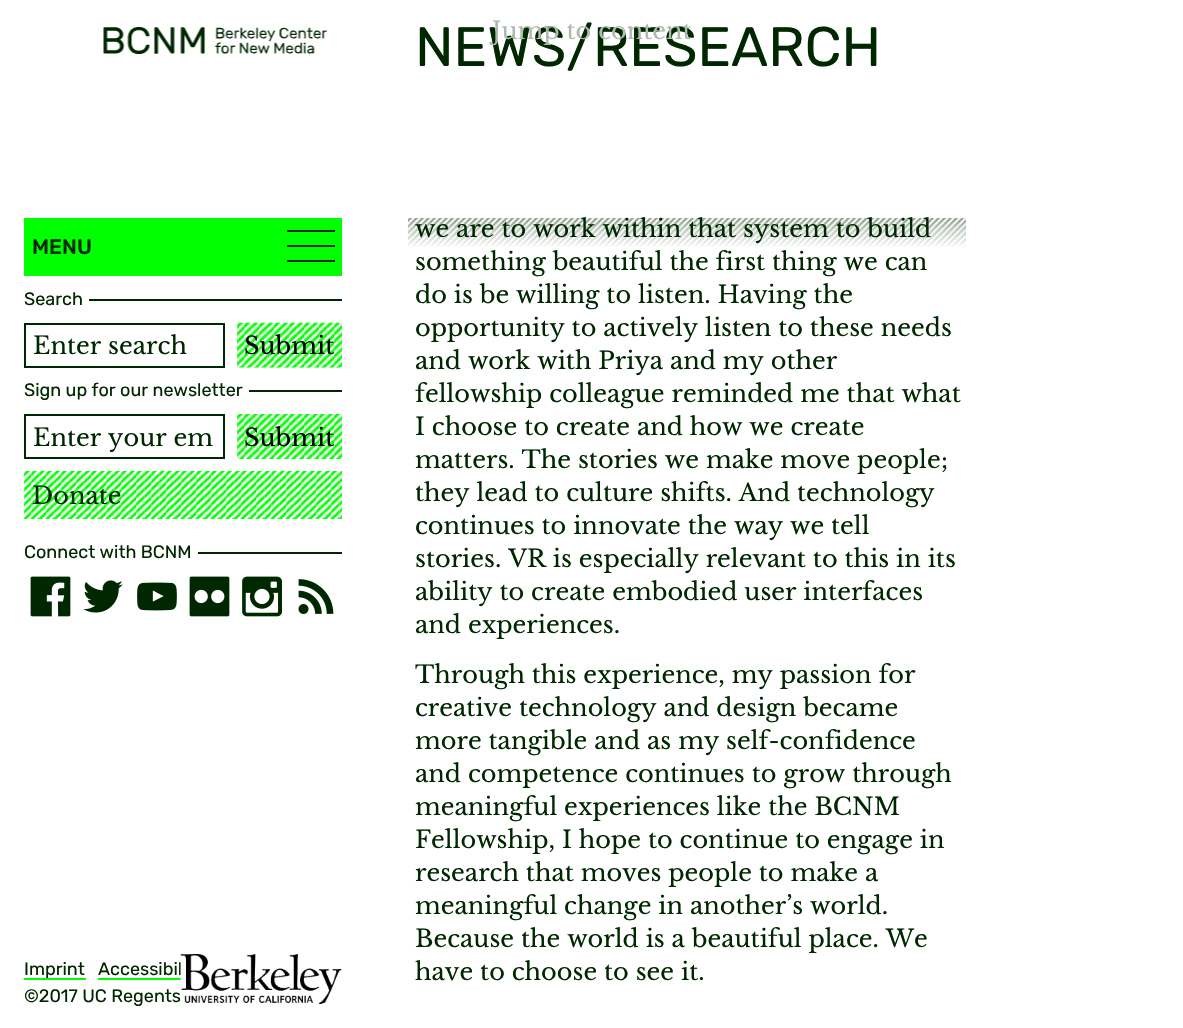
void draw(SkCanvas* canvas) {
	SkPaint fill;
	fill.setAntiAlias(true);
	auto makeFont = [&](const char* family, int weight, float size, bool italic = false) {
		SkFontStyle style(weight, SkFontStyle::kNormal_Width,
			italic ? SkFontStyle::kItalic_Slant : SkFontStyle::kUpright_Slant);
		SkFont result(fontMgr->matchFamilyStyle(family, style), size);
		result.setSubpixel(true);
		return result;
	};
	auto text = [&](const char* s, float x, float y, const SkFont& font) {
		canvas->drawString(s, x, y, font, fill);
	};
	auto box = [&](float l, float t, float r, float b) {
		canvas->drawRect(SkRect::MakeLTRB(l, t, r, b), fill);
	};
	auto picture = [&](const char* path, float l, float t, float r, float b) {
		auto image = SkImages::DeferredFromEncodedData(SkData::MakeFromFileName(path));
		canvas->drawImageRect(image, SkRect::MakeLTRB(l, t, r, b), SkSamplingOptions());
	};
	canvas->clear(0xFFFFFFFF);
	picture("image0.png", 103, 27, 328, 54);
	fill.setColor(0xFF00FF00);
	box(24, 218, 342, 276);
	fill.setColor(0xFF002800);
	box(287, 230, 335, 232);
	box(287, 245, 335, 247);
	box(287, 260, 335, 262);
	box(89, 299, 342, 301);
	fill.setStyle(SkPaint::kStroke_Style);
	fill.setStrokeWidth(2);
	canvas->drawRect(SkRect::MakeLTRB(25, 324, 224, 367), fill);
	fill.setStyle(SkPaint::kFill_Style);
	fill.setColor(0xFFEFEFEF);
	box(237, 323, 342, 368);
	picture("image1.png", 237, 322, 342, 368);
	fill.setColor(0xFF002800);
	box(249, 390, 342, 392);
	fill.setStyle(SkPaint::kStroke_Style);
	canvas->drawRect(SkRect::MakeLTRB(25, 415, 224, 458), fill);
	fill.setStyle(SkPaint::kFill_Style);
	fill.setColor(0xFFEFEFEF);
	box(237, 414, 342, 459);
	picture("image2.png", 237, 414, 342, 459);
	picture("image3.png", 24, 471, 342, 519);
	fill.setColor(0xFF002800);
	box(198, 552, 342, 554);
	picture("image4.png", 30, 576, 71, 617);
	picture("image5.png", 83, 580, 123, 613);
	picture("image6.png", 137, 582, 177, 611);
	picture("image7.png", 189, 576, 230, 617);
	picture("image8.png", 242, 576, 282, 617);
	picture("image9.png", 298, 579, 334, 614);
	fill.setColor(0xFF00FF00);
	box(98, 978, 181, 980);
	auto font1 = makeFont("Rubik", 300, 55.5f);
	fill.setColor(0xFF002800);
	text("NEWS/RESEARCH", 415, 66, font1);
	auto font2 = makeFont("Libre Baskerville", 400, 24);
	fill.setColor(0xFFAEBAAE);
	text("Jump to content", 492, 39, font2);
	auto font3 = makeFont("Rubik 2", 300, 21);
	fill.setColor(0xFF002800);
	text("MENU", 32, 254, font3);
	auto font4 = makeFont("Rubik", 300, 18);
	text("Search", 24, 305, font4);
	text("Enter search", 33, 354, font2);
	fill.setColor(0xFF000000);
	text("Submit", 244, 354, font2);
	fill.setColor(0xFF002800);
	text("Sign up for our newsletter", 24, 396, font4);
	canvas->save();
	canvas->clipRect(SkRect::MakeLTRB(33, 422, 216, 452));
	text("Enter your em", 33, 446, font2);
	canvas->restore();
	fill.setColor(0xFF000000);
	text("Submit", 244, 446, font2);
	fill.setColor(0xFF002800);
	text("Donate", 32, 504, font2);
	text("Connect with BCNM", 24, 558, font4);
	text("Imprint", 24, 975, font4);
	fill.setColor(0xFF00FF00);
	box(24, 978, 86, 980);
	fill.setColor(0xFF002800);
	text("Accessibil", 98, 975, font4);
	text("©2017 UC Regents", 24, 1002, font4);
	picture("image10.png", 180, 954, 342, 1004);
	text("we are to work within that system to build", 415, 237, font2);
	text("something beautiful the first thing we can", 415, 270, font2);
	text("do is be willing to listen. Having the", 415, 303, font2);
	text("opportunity to actively listen to these needs", 415, 336, font2);
	text("and work with Priya and my other", 415, 369, font2);
	text("fellowship colleague reminded me that what", 415, 402, font2);
	text("I choose to create and how we create", 415, 435, font2);
	text("matters. The stories we make move people;", 415, 468, font2);
	text("they lead to culture shifts. And technology", 415, 501, font2);
	text("continues to innovate the way we tell", 415, 534, font2);
	text("stories. VR is especially relevant to this in its", 415, 567, font2);
	text("ability to create embodied user interfaces", 415, 600, font2);
	text("and experiences.", 415, 633, font2);
	text("Through this experience, my passion for", 415, 683, font2);
	text("creative technology and design became", 415, 716, font2);
	text("more tangible and as my self-confidence", 415, 749, font2);
	text("and competence continues to grow through", 415, 782, font2);
	text("meaningful experiences like the BCNM", 415, 815, font2);
	text("Fellowship, I hope to continue to engage in", 415, 848, font2);
	text("research that moves people to make a", 415, 881, font2);
	text("meaningful change in another’s world.", 415, 914, font2);
	text("Because the world is a beautiful place. We", 415, 947, font2);
	text("have to choose to see it.", 415, 980, font2);
	picture("image11.png", 408, 218, 966, 247);
}
